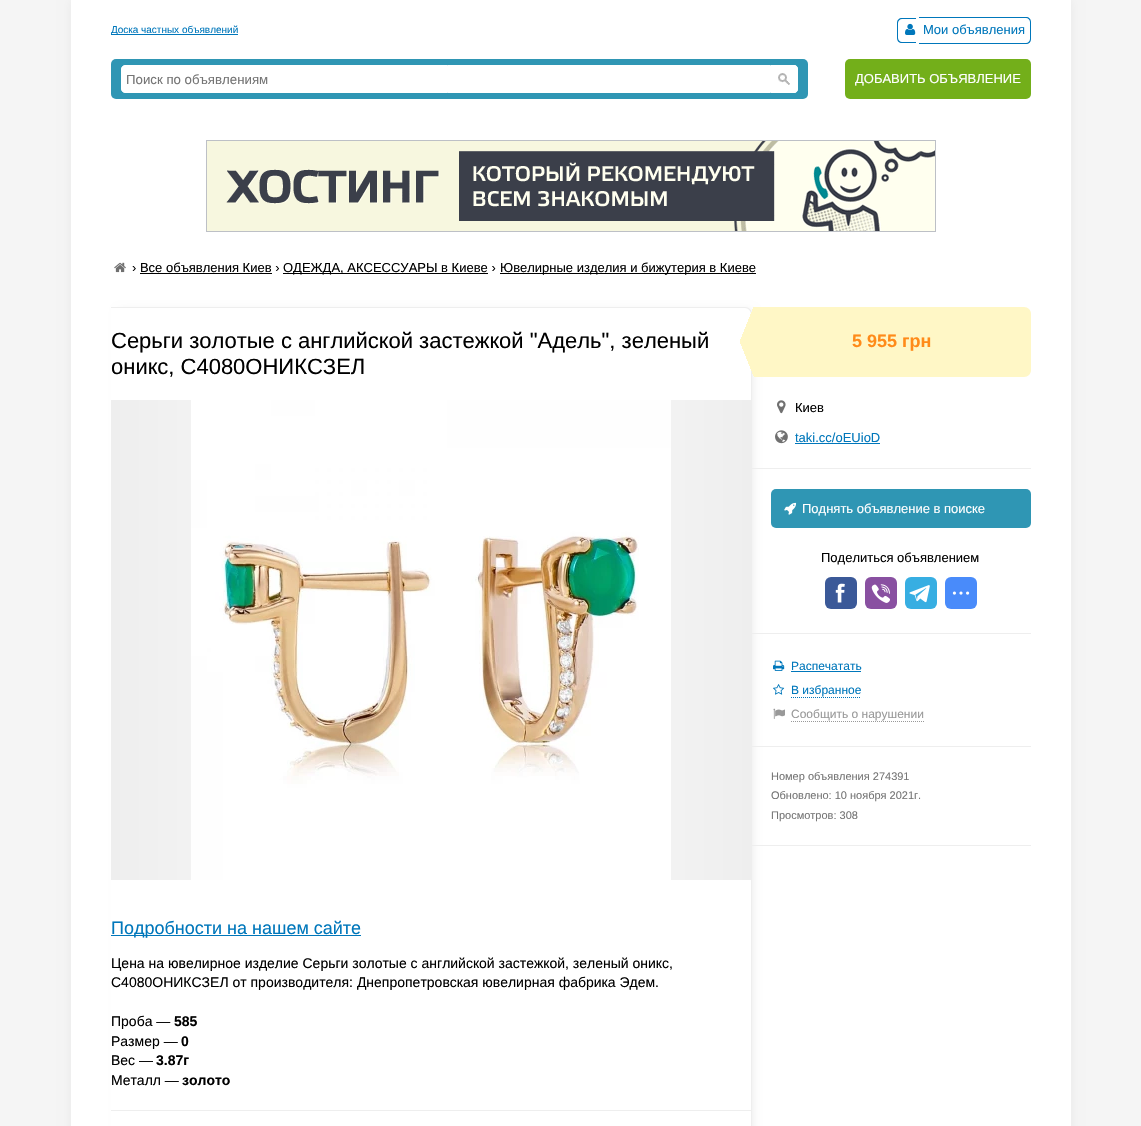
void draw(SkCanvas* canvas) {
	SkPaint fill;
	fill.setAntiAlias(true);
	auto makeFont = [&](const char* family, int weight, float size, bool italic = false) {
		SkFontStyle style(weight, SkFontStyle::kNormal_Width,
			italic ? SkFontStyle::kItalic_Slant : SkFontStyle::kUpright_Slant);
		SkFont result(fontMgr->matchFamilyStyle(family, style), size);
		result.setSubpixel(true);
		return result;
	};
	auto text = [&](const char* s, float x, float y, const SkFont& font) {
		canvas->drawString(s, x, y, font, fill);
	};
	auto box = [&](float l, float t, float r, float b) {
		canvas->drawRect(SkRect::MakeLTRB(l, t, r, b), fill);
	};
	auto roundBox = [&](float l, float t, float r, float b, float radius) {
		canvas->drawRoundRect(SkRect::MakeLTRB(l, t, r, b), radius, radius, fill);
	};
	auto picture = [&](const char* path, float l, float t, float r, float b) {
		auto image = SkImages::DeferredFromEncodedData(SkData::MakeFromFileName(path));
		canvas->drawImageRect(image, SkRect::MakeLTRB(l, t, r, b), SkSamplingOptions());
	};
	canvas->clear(0xFFF5F5F5);
	fill.setColor(0xFFE8E8E8);
	fill.setMaskFilter(SkMaskFilter::MakeBlur(kNormal_SkBlurStyle, 5));
	canvas->drawRect(SkRect::MakeLTRB(71, 0, 1071, 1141), fill);
	fill.setMaskFilter(nullptr);
	fill.setColor(0xFFFFFFFF);
	box(71, 0, 1071, 1126);
	fill.setColor(0xFF0077BB);
	box(111, 34, 238, 35);
	canvas->drawPath(SkPathBuilder(SkPathFillType::kEvenOdd).moveTo(902, 18).lineTo(916, 18).lineTo(916, 43).lineTo(902, 43).cubicTo(899, 43, 897, 41, 897, 38).lineTo(897, 23).cubicTo(897, 20, 899, 18, 902, 18).close().moveTo(902, 19).lineTo(916, 19).lineTo(916, 42).lineTo(902, 42).cubicTo(900, 42, 898, 40, 898, 38).lineTo(898, 23).cubicTo(898, 21, 900, 19, 902, 19).close().detach(), fill);
	canvas->drawPath(SkPathBuilder(SkPathFillType::kEvenOdd).moveTo(919, 17).lineTo(1026, 17).cubicTo(1029, 17, 1031, 19, 1031, 22).lineTo(1031, 39).cubicTo(1031, 42, 1029, 44, 1026, 44).lineTo(919, 44).close().moveTo(919, 18).lineTo(1026, 18).cubicTo(1028, 18, 1030, 20, 1030, 22).lineTo(1030, 39).cubicTo(1030, 41, 1028, 43, 1026, 43).lineTo(919, 43).close().detach(), fill);
	picture("image0.png", 905, 23, 916, 35);
	fill.setColor(0xFF2F96B4);
	roundBox(111, 59, 808, 99, 5);
	fill.setColor(0xFFFFFFFF);
	canvas->drawPath(SkPathBuilder().moveTo(125, 65.5f).lineTo(770.5f, 65.5f).lineTo(770.5f, 92.5f).lineTo(125, 92.5f).cubicTo(123, 92.5f, 121.5f, 91, 121.5f, 89).lineTo(121.5f, 69).cubicTo(121.5f, 67, 123, 65.5f, 125, 65.5f).close().detach(), fill);
	fill.setStyle(SkPaint::kStroke_Style);
	fill.setStrokeWidth(1);
	canvas->drawPath(SkPathBuilder().moveTo(125, 65.5f).lineTo(770.5f, 65.5f).lineTo(770.5f, 92.5f).lineTo(125, 92.5f).cubicTo(123, 92.5f, 121.5f, 91, 121.5f, 89).lineTo(121.5f, 69).cubicTo(121.5f, 67, 123, 65.5f, 125, 65.5f).close().detach(), fill);
	fill.setStyle(SkPaint::kFill_Style);
	canvas->drawPath(SkPathBuilder().moveTo(771, 65).lineTo(794, 65).cubicTo(796, 65, 798, 67, 798, 69).lineTo(798, 89).cubicTo(798, 91, 796, 93, 794, 93).lineTo(771, 93).close().detach(), fill);
	picture("image1.png", 778, 73, 790, 85);
	canvas->drawPath(SkPathBuilder(SkPathFillType::kEvenOdd).moveTo(771, 65).lineTo(794, 65).cubicTo(796, 65, 798, 67, 798, 69).lineTo(798, 89).cubicTo(798, 91, 796, 93, 794, 93).lineTo(771, 93).close().moveTo(771, 66).lineTo(794, 66).cubicTo(795.5f, 66, 797, 67.5f, 797, 69).lineTo(797, 89).cubicTo(797, 90.5f, 795.5f, 92, 794, 92).lineTo(771, 92).close().detach(), fill);
	fill.setColor(0xFF73AF1A);
	roundBox(845, 59, 1031, 99, 5);
	fill.setStyle(SkPaint::kStroke_Style);
	fill.setColor(0xFFBDC0C6);
	canvas->drawRect(SkRect::MakeLTRB(206.5f, 140.5f, 935.5f, 231.5f), fill);
	picture("image2.png", 207, 141, 935, 231);
	picture("image3.png", 114, 262, 126, 273);
	fill.setStyle(SkPaint::kFill_Style);
	fill.setColor(0xFF000000);
	box(283, 273, 488, 274);
	box(500, 273, 756, 274);
	box(140, 273, 272, 274);
	canvas->save();
	canvas->clipPath(SkPathBuilder(SkPathFillType::kEvenOdd).moveTo(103, 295).lineTo(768, 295).lineTo(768, 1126).lineTo(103, 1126).close().moveTo(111, 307).lineTo(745, 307).cubicTo(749, 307, 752, 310, 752, 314).lineTo(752, 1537).lineTo(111, 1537).close().detach(), true);
	fill.setColor(0xFFE8E8E8);
	fill.setMaskFilter(SkMaskFilter::MakeBlur(kNormal_SkBlurStyle, 5));
	canvas->drawRoundRect(SkRect::MakeLTRB(119, 311, 752, 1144), 3, 3, fill);
	fill.setMaskFilter(nullptr);
	canvas->restore();
	fill.setColor(0xFFEEEEEE);
	canvas->drawPath(SkPathBuilder(SkPathFillType::kEvenOdd).moveTo(111, 307).lineTo(745, 307).cubicTo(749, 307, 752, 310, 752, 314).lineTo(752, 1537).lineTo(111, 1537).close().moveTo(111, 308).lineTo(745, 308).cubicTo(748, 308, 751, 311, 751, 314).lineTo(751, 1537).lineTo(111, 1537).close().detach(), fill);
	{
		const SkColor colors[] = {0xFFEEEEEE, 0xFFFFFFFF, 0xFFEEEEEE};
		const float stops[] = {0, 0.5f, 1};
		const SkPoint ends[] = {{111, 640}, {751, 640}};
		fill.setShader(SkGradientShader::MakeLinear(ends, colors, stops, 3, SkTileMode::kClamp));
		fill.setAlpha(255);
	}
	box(111, 400, 751, 880);
	picture("image4.png", 191, 400, 671, 880);
	fill.setShader(nullptr);
	fill.setColor(0xFF0077BB);
	box(111, 935, 361, 936);
	fill.setColor(0xFFEEEEEE);
	box(111, 1110, 751, 1111);
	fill.setColor(0xFFFFF7C6);
	canvas->drawPath(SkPathBuilder().moveTo(754, 307).lineTo(1024, 307).cubicTo(1028, 307, 1031, 310, 1031, 314).lineTo(1031, 370).cubicTo(1031, 374, 1028, 377, 1024, 377).lineTo(754, 377).close().detach(), fill);
	picture("image5.png", 740, 307, 754, 376);
	picture("image6.png", 777, 400, 786, 414);
	picture("image7.png", 775, 430, 788, 444);
	fill.setColor(0xFF0077BB);
	box(795, 443, 880, 444);
	fill.setColor(0xFFEEEEEE);
	box(751, 468, 1031, 469);
	fill.setColor(0xFF2F96B4);
	roundBox(771, 489, 1031, 528, 5);
	picture("image8.png", 784, 502, 797, 515);
	fill.setColor(0xFF3B5998);
	roundBox(825, 577, 857, 609, 6);
	picture("image9.png", 835, 583, 845, 603);
	fill.setColor(0xFF8950A1);
	roundBox(865, 577, 897, 609, 6);
	picture("image10.png", 871, 584, 890, 603);
	fill.setColor(0xFF37AEE2);
	roundBox(905, 577, 937, 609, 6);
	picture("image11.png", 909, 585, 930, 603);
	fill.setColor(0xFF498BFA);
	roundBox(945, 577, 977, 609, 6);
	picture("image12.png", 952, 591, 970, 595);
	fill.setColor(0xFFEEEEEE);
	box(751, 633, 1031, 634);
	picture("image13.png", 773, 660, 785, 671);
	fill.setColor(0xFF0077BB);
	box(791, 671, 861, 672);
	picture("image14.png", 773, 684, 785, 695);
	fill.setStyle(SkPaint::kStroke_Style);
	fill.setPathEffect(SkDashPathEffect::Make({{1, 1}}, 0));
	canvas->drawPath(SkPathBuilder().moveTo(791, 697.5f).lineTo(861, 697.5f).detach(), fill);
	fill.setPathEffect(nullptr);
	picture("image15.png", 773, 708, 785, 719);
	fill.setColor(0xFF999999);
	fill.setPathEffect(SkDashPathEffect::Make({{1, 1}}, 0));
	canvas->drawPath(SkPathBuilder().moveTo(791, 721.5f).lineTo(924, 721.5f).detach(), fill);
	fill.setPathEffect(nullptr);
	fill.setStyle(SkPaint::kFill_Style);
	fill.setColor(0xFFEEEEEE);
	box(751, 746, 1031, 747);
	box(751, 845, 1031, 846);
	auto font1 = makeFont("Liberation Sans", 400, 10);
	fill.setColor(0xFF0077BB);
	text("Доска частных объявлений", 111, 33, font1);
	auto font2 = makeFont("Liberation Sans", 400, 13);
	text("Мои объявления", 923, 34, font2);
	auto font3 = makeFont("Liberation Sans", 400, 13.25f);
	fill.setColor(0xFF757575);
	text("Поиск по объявлениям", 126, 84, font3);
	fill.setColor(0xFFFFFFFF);
	text("ДОБАВИТЬ ОБЪЯВЛЕНИЕ", 855, 83, font2);
	fill.setColor(0xFF000000);
	text("› Все объявления Киев ›", 132, 272, font2);
	text("ОДЕЖДА, АКСЕССУАРЫ в Киеве ›", 283, 272, font2);
	text("Ювелирные изделия и бижутерия в Киеве", 500, 272, font2);
	auto font4 = makeFont("Liberation Sans", 400, 22);
	text("Серьги золотые с английской застежкой \"Адель\", зеленый", 111, 348, font4);
	text("оникс, С4080ОНИКСЗЕЛ", 111, 374, font4);
	auto font5 = makeFont("Liberation Sans", 400, 18);
	fill.setColor(0xFF0077BB);
	text("Подробности на нашем сайте", 111, 934, font5);
	auto font6 = makeFont("Liberation Sans", 400, 14);
	fill.setColor(0xFF000000);
	text("Цена на ювелирное изделие Серьги золотые с английской застежкой, зеленый оникс,", 111, 968, font6);
	text("С4080ОНИКСЗЕЛ от производителя: Днепропетровская ювелирная фабрика Эдем.", 111, 987, font6);
	text("Проба —", 111, 1026, font6);
	auto font7 = makeFont("Liberation Sans", 700, 14);
	text("585", 174, 1026, font7);
	text("Размер —", 111, 1046, font6);
	text("0", 181, 1046, font7);
	text("Вес —", 111, 1065, font6);
	text("3.87г", 156, 1065, font7);
	text("Металл —", 111, 1085, font6);
	text("золото", 182, 1085, font7);
	auto font8 = makeFont("Liberation Sans", 700, 18);
	fill.setColor(0xFFFF8B19);
	text("5 955 грн", 852, 347, font8);
	fill.setColor(0xFF000000);
	text("Киев", 795, 412, font2);
	fill.setColor(0xFF0077BB);
	text("taki.cc/oEUioD", 795, 442, font2);
	fill.setColor(0xFFFFFFFF);
	text("Поднять объявление в поиске", 802, 513, font2);
	fill.setColor(0xFF000000);
	text("Поделиться объявлением", 821, 562, font2);
	auto font9 = makeFont("Liberation Sans", 400, 12);
	fill.setColor(0xFF0077BB);
	text("Распечатать", 791, 670, font9);
	text("В избранное", 791, 694, font9);
	fill.setColor(0xFF999999);
	text("Сообщить о нарушении", 791, 718, font9);
	auto font10 = makeFont("Liberation Sans", 400, 11);
	fill.setColor(0xFF757575);
	text("Номер объявления 274391", 771, 780, font10);
	text("Обновлено: 10 ноября 2021г.", 771, 799, font10);
	text("Просмотров: 308", 771, 819, font10);
}
